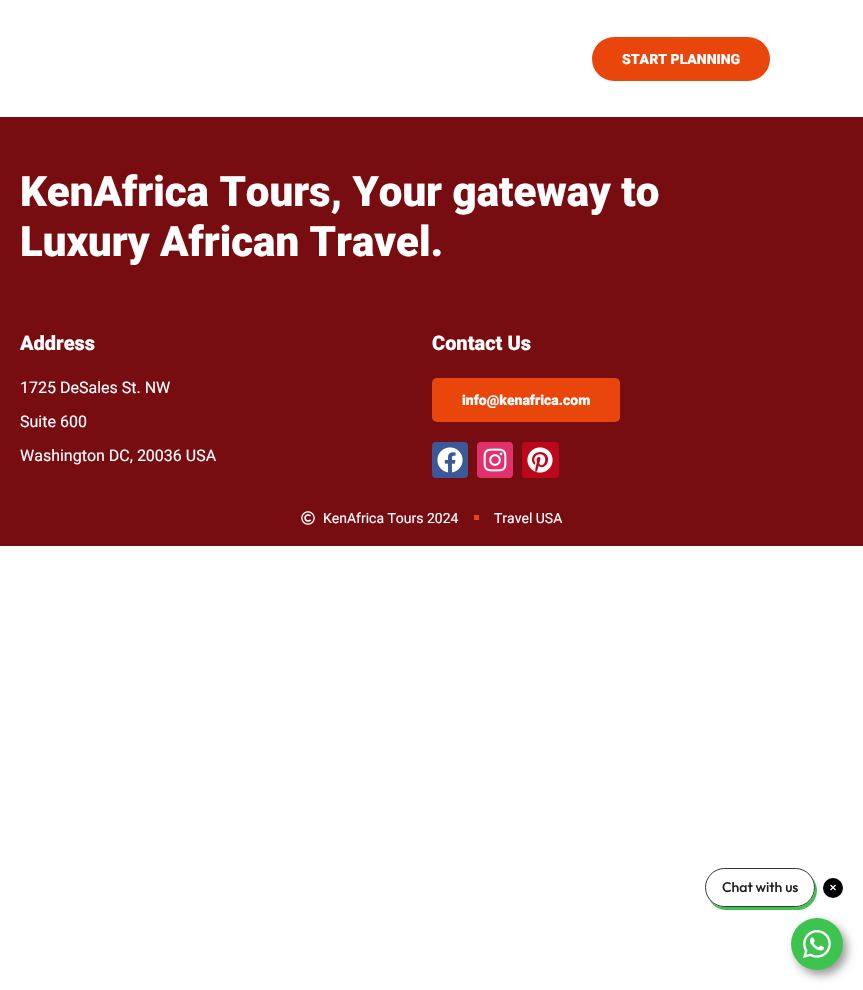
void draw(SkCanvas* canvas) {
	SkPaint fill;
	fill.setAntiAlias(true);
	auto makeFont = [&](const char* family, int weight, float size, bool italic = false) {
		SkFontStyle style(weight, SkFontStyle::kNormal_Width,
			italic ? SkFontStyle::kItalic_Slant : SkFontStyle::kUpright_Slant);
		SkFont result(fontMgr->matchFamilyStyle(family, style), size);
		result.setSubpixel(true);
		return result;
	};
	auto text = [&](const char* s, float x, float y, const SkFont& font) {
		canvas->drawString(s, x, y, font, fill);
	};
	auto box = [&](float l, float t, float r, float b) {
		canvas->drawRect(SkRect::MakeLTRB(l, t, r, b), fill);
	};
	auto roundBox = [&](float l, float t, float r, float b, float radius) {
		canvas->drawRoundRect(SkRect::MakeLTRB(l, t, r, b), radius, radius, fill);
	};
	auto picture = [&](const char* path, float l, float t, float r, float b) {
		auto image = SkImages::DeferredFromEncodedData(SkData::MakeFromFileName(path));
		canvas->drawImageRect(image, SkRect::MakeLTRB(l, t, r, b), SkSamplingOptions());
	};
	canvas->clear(0xFFFFFFFF);
	fill.setColor(0xFFE9460B);
	roundBox(592, 37, 770, 81, 22);
	fill.setColor(0xFF770D11);
	box(0, 117, 863, 546);
	fill.setColor(0xFFE9460B);
	roundBox(432, 378, 620, 422, 5);
	fill.setColor(0xFF3B5998);
	roundBox(432, 442, 468, 478, 4);
	picture("image0.png", 437, 447, 463, 473);
	fill.setColor(0xFFE1306C);
	roundBox(477, 442, 513, 478, 4);
	picture("image1.png", 483, 448, 507, 472);
	fill.setColor(0xFFBD081C);
	roundBox(522, 442, 559, 478, 4);
	picture("image2.png", 527, 447, 553, 473);
	picture("image3.png", 301, 511, 315, 525);
	fill.setColor(0xFFE9460B);
	box(474, 515, 479, 520);
	fill.setColor(0x66000000);
	fill.setMaskFilter(SkMaskFilter::MakeBlur(kNormal_SkBlurStyle, 5));
	canvas->drawRoundRect(SkRect::MakeLTRB(795, 923, 847, 975), 26, 26, fill);
	fill.setMaskFilter(nullptr);
	fill.setColor(0xFF3FC350);
	canvas->drawPath(SkPathBuilder().moveTo(709, 900).cubicTo(713, 906, 719, 910, 726, 910).lineTo(798, 910).cubicTo(808, 910, 817, 901, 817, 890).cubicTo(817, 886, 815, 882, 813, 878).cubicTo(814, 881, 815, 884, 815, 888).cubicTo(815, 898, 806, 907, 796, 907).lineTo(724, 907).cubicTo(718, 907, 713, 904, 709, 900).close().detach(), fill);
	fill.setColor(0xFFFFFFFF);
	canvas->drawRoundRect(SkRect::MakeLTRB(705.5f, 868.5f, 814.5f, 906.5f), 19, 19, fill);
	fill.setStyle(SkPaint::kStroke_Style);
	fill.setStrokeWidth(1);
	fill.setColor(0xFF363636);
	canvas->drawRoundRect(SkRect::MakeLTRB(705.5f, 868.5f, 814.5f, 906.5f), 19, 19, fill);
	fill.setStyle(SkPaint::kFill_Style);
	fill.setColor(0xFF000000);
	canvas->drawCircle(833, 888, 10, fill);
	fill.setStyle(SkPaint::kStroke_Style);
	fill.setStrokeWidth(1.3f);
	fill.setColor(0xFFFFFFFF);
	canvas->drawPath(SkPathBuilder().moveTo(830.5f, 885).lineTo(835.5f, 890).moveTo(830.5f, 890).lineTo(835.5f, 885).detach(), fill);
	fill.setStyle(SkPaint::kFill_Style);
	fill.setColor(0xFF3FC350);
	canvas->drawCircle(817, 944, 26, fill);
	picture("image4.png", 803, 930, 831, 958);
	auto font1 = makeFont("Roboto", 900, 14);
	fill.setColor(0xFFFFFFFF);
	text("START PLANNING", 622, 64, font1);
	auto font2 = makeFont("Roboto", 900, 42);
	text("KenAfrica Tours, Your gateway to", 20, 206, font2);
	text("Luxury African Travel.", 20, 256, font2);
	auto font3 = makeFont("Roboto", 900, 20);
	text("Address", 20, 350, font3);
	auto font4 = makeFont("Roboto", 400, 16);
	text("1725 DeSales St. NW", 20, 393, font4);
	text("Suite 600", 20, 427, font4);
	text("Washington DC, 20036 USA", 20, 461, font4);
	text("Contact Us", 432, 350, font3);
	text("info@kenafrica.com", 462, 405, font1);
	auto font5 = makeFont("Roboto", 400, 14);
	text("KenAfrica Tours 2024", 323, 523, font5);
	text("Travel USA", 494, 523, font5);
	auto font6 = makeFont("Outfit", 500, 14);
	fill.setColor(0xFF202020);
	text("Chat with us", 722, 892, font6);
}
